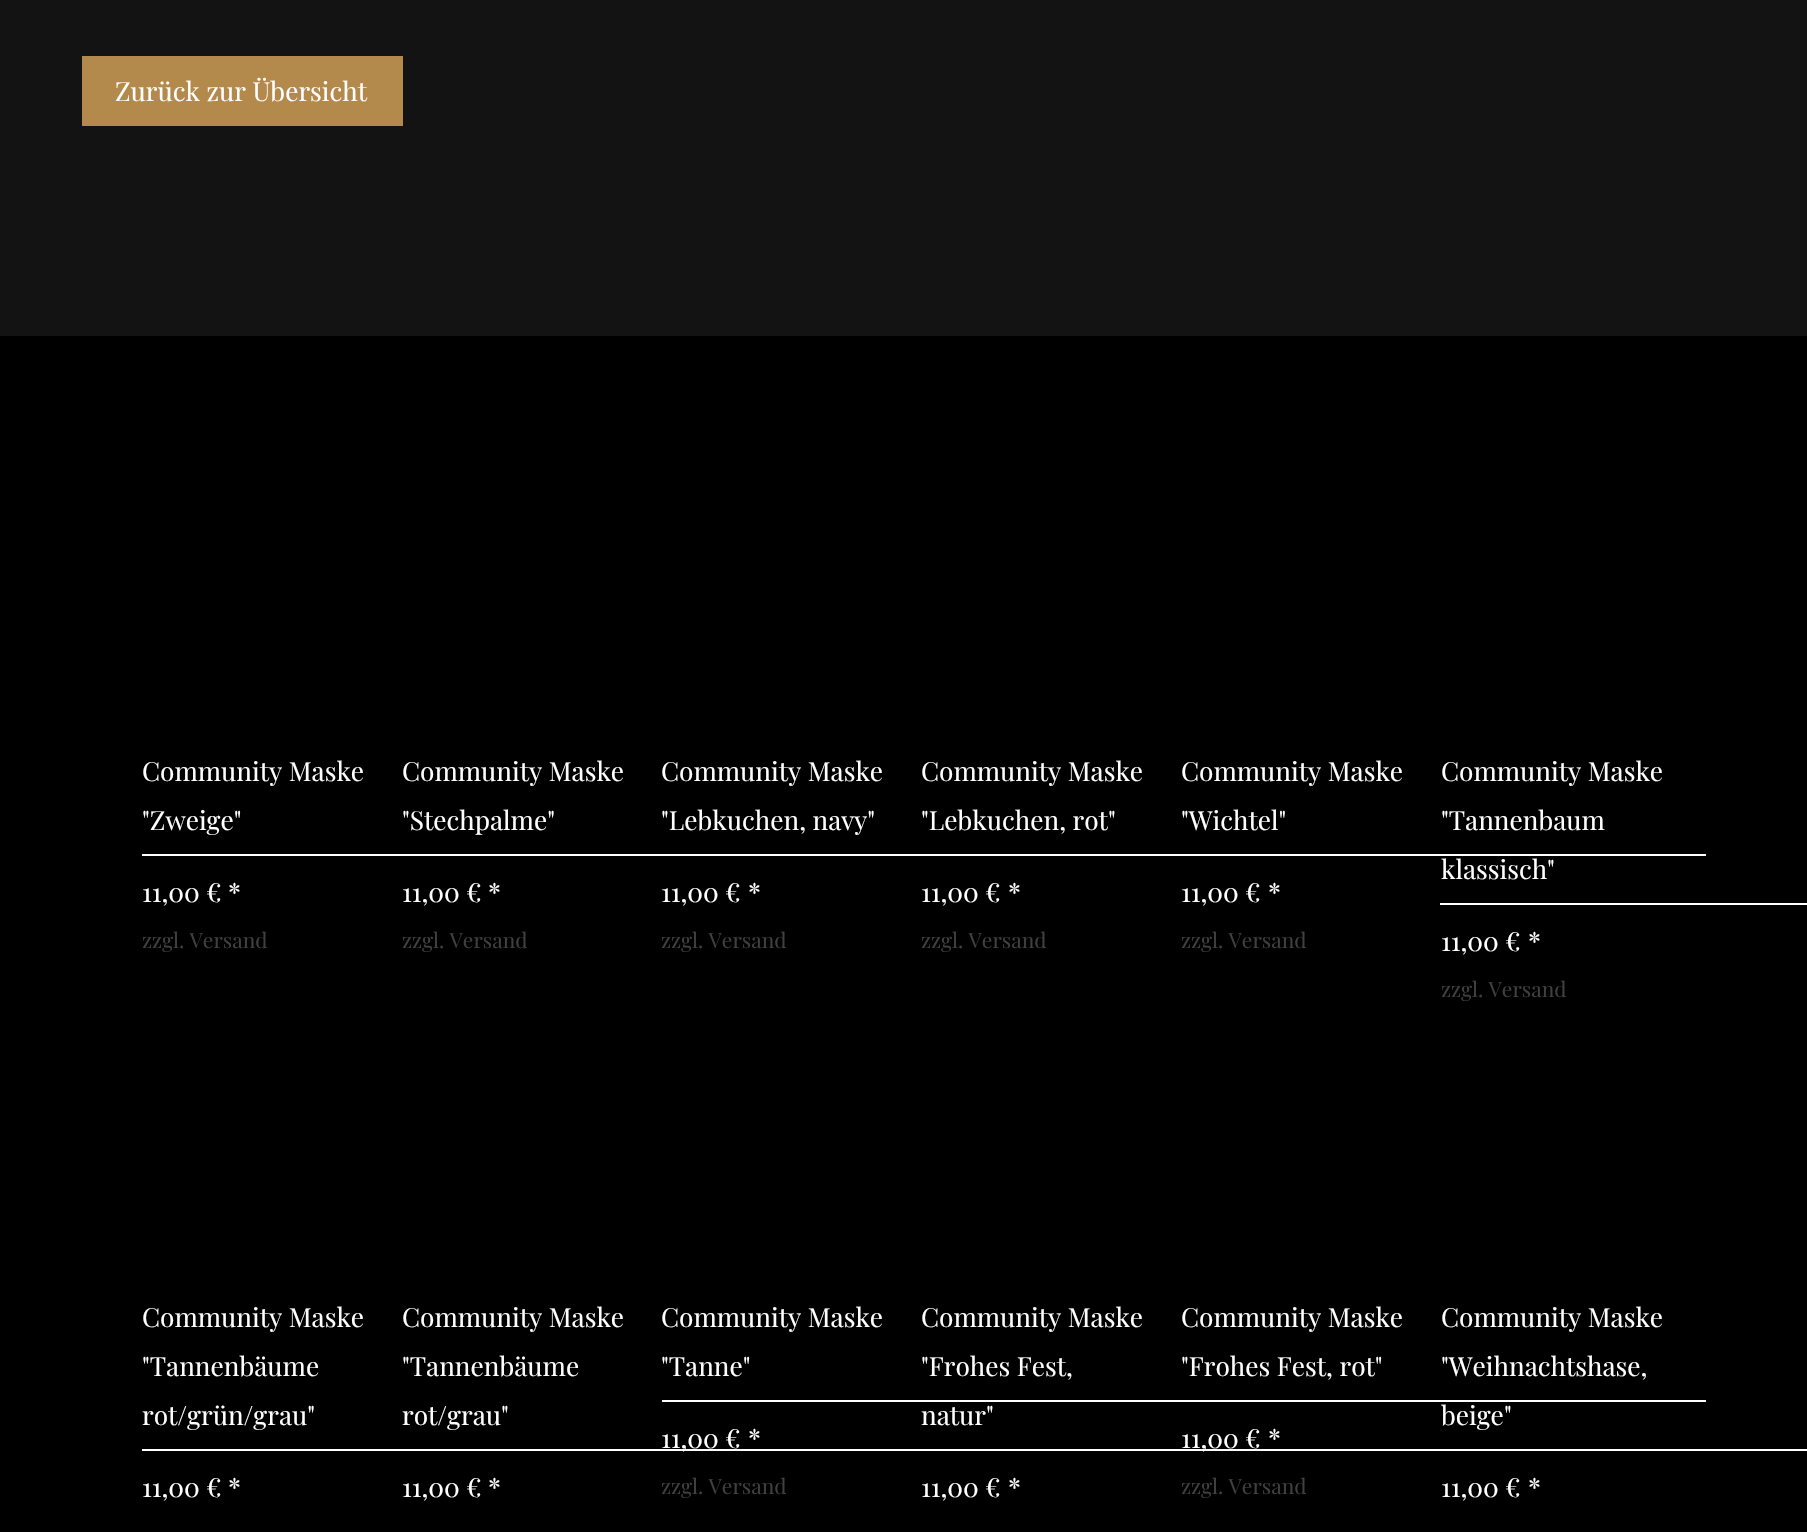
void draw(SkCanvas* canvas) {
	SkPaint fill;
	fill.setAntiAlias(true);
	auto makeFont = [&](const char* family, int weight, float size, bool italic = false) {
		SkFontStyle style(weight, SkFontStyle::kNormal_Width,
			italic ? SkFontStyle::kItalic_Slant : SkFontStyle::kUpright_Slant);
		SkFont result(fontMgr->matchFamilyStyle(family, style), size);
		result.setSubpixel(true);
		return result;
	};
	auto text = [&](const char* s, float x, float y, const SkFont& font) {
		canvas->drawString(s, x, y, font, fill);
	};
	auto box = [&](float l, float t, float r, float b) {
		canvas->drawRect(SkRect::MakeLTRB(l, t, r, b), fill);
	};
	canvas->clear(0xFF131313);
	fill.setColor(0xFFB38A4C);
	box(82, 56, 403, 126);
	fill.setColor(0xFF000000);
	box(0, 336, 1807, 1532);
	fill.setColor(0xFFFFFFFF);
	box(142, 854, 1706, 856);
	box(1440, 903, 1807, 905);
	box(142, 1449, 1807, 1451);
	box(662, 1400, 1706, 1402);
	auto font1 = makeFont("Playfair Display", 400, 26.25f);
	text("Zurück zur Übersicht", 115, 101, font1);
	text("Community Maske", 142, 781, font1);
	text("\"Zweige\"", 142, 830, font1);
	text("11,00 €", 142, 902, font1);
	text("*", 228, 902, font1);
	auto font2 = makeFont("Playfair Display", 400, 21);
	fill.setColor(0xFF404040);
	text("zzgl. Versand", 142, 948, font2);
	fill.setColor(0xFFFFFFFF);
	text("Community Maske", 402, 781, font1);
	text("\"Stechpalme\"", 402, 830, font1);
	text("11,00 €", 402, 902, font1);
	text("*", 488, 902, font1);
	fill.setColor(0xFF404040);
	text("zzgl. Versand", 402, 948, font2);
	fill.setColor(0xFFFFFFFF);
	text("Community Maske", 661, 781, font1);
	text("\"Lebkuchen, navy\"", 661, 830, font1);
	text("11,00 €", 661, 902, font1);
	text("*", 748, 902, font1);
	fill.setColor(0xFF404040);
	text("zzgl. Versand", 661, 948, font2);
	fill.setColor(0xFFFFFFFF);
	text("Community Maske", 921, 781, font1);
	text("\"Lebkuchen, rot\"", 921, 830, font1);
	text("11,00 €", 921, 902, font1);
	text("*", 1008, 902, font1);
	fill.setColor(0xFF404040);
	text("zzgl. Versand", 921, 948, font2);
	fill.setColor(0xFFFFFFFF);
	text("Community Maske", 1181, 781, font1);
	text("\"Wichtel\"", 1181, 830, font1);
	text("11,00 €", 1181, 902, font1);
	text("*", 1268, 902, font1);
	fill.setColor(0xFF404040);
	text("zzgl. Versand", 1181, 948, font2);
	fill.setColor(0xFFFFFFFF);
	text("Community Maske", 1441, 781, font1);
	text("\"Tannenbaum", 1441, 830, font1);
	text("klassisch\"", 1441, 879, font1);
	text("11,00 €", 1441, 951, font1);
	text("*", 1528, 951, font1);
	fill.setColor(0xFF404040);
	text("zzgl. Versand", 1441, 997, font2);
	fill.setColor(0xFFFFFFFF);
	text("Community Maske", 142, 1327, font1);
	text("\"Tannenbäume", 142, 1376, font1);
	text("rot/grün/grau\"", 142, 1425, font1);
	text("11,00 €", 142, 1497, font1);
	text("*", 228, 1497, font1);
	text("Community Maske", 402, 1327, font1);
	text("\"Tannenbäume", 402, 1376, font1);
	text("rot/grau\"", 402, 1425, font1);
	text("11,00 €", 402, 1497, font1);
	text("*", 488, 1497, font1);
	text("Community Maske", 661, 1327, font1);
	text("\"Tanne\"", 661, 1376, font1);
	text("11,00 €", 661, 1448, font1);
	text("*", 748, 1448, font1);
	fill.setColor(0xFF404040);
	text("zzgl. Versand", 661, 1494, font2);
	fill.setColor(0xFFFFFFFF);
	text("Community Maske", 921, 1327, font1);
	text("\"Frohes Fest,", 921, 1376, font1);
	text("natur\"", 921, 1425, font1);
	text("11,00 €", 921, 1497, font1);
	text("*", 1008, 1497, font1);
	text("Community Maske", 1181, 1327, font1);
	text("\"Frohes Fest, rot\"", 1181, 1376, font1);
	text("11,00 €", 1181, 1448, font1);
	text("*", 1268, 1448, font1);
	fill.setColor(0xFF404040);
	text("zzgl. Versand", 1181, 1494, font2);
	fill.setColor(0xFFFFFFFF);
	text("Community Maske", 1441, 1327, font1);
	text("\"Weihnachtshase,", 1441, 1376, font1);
	text("beige\"", 1441, 1425, font1);
	text("11,00 €", 1441, 1497, font1);
	text("*", 1528, 1497, font1);
}
